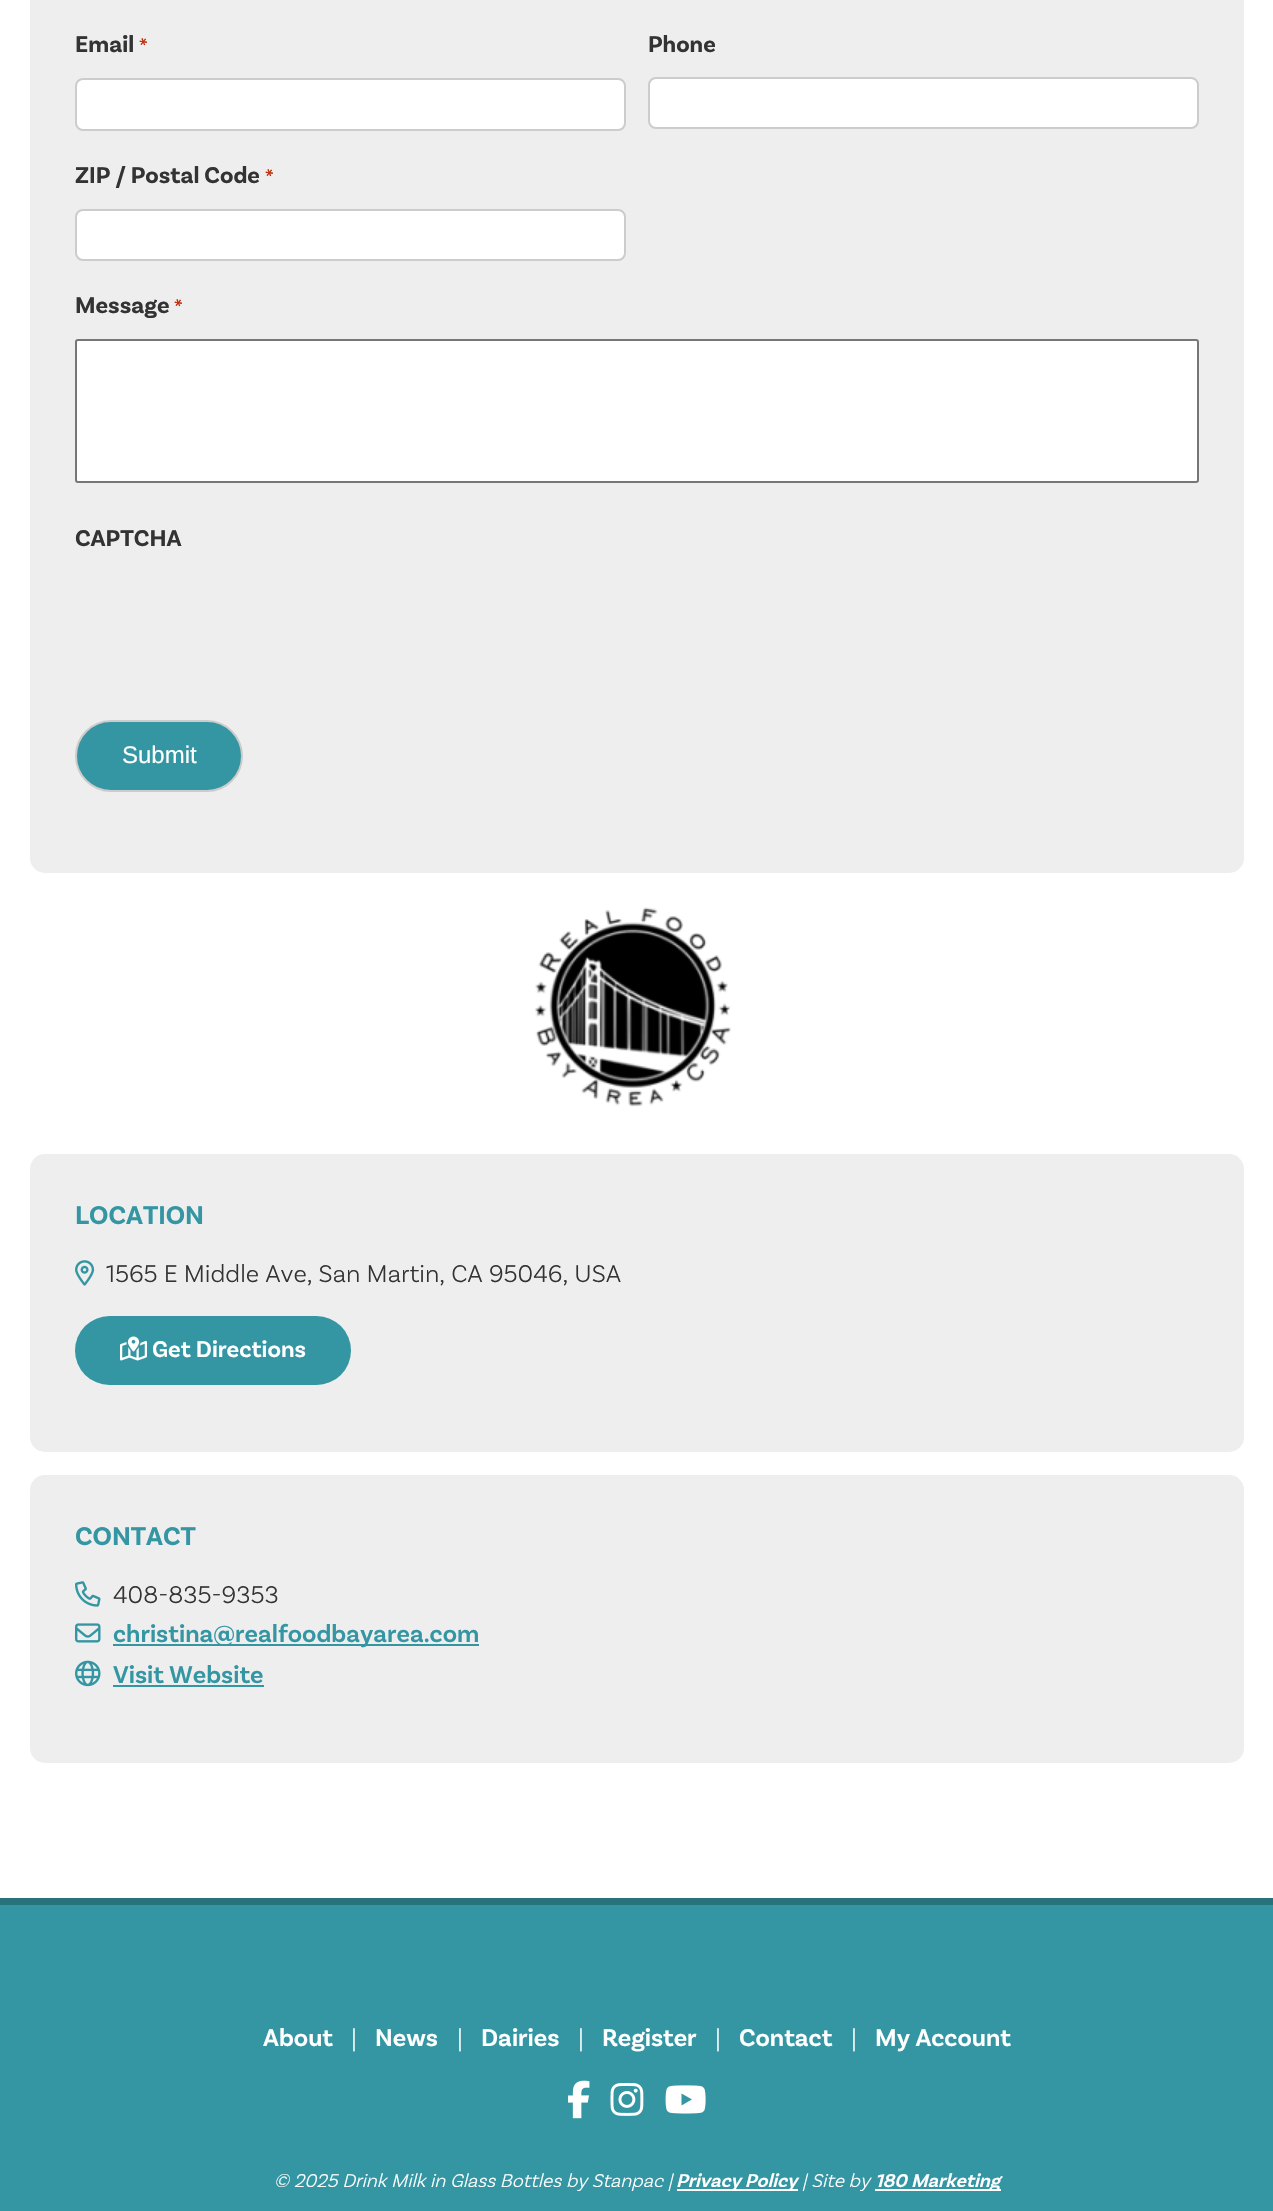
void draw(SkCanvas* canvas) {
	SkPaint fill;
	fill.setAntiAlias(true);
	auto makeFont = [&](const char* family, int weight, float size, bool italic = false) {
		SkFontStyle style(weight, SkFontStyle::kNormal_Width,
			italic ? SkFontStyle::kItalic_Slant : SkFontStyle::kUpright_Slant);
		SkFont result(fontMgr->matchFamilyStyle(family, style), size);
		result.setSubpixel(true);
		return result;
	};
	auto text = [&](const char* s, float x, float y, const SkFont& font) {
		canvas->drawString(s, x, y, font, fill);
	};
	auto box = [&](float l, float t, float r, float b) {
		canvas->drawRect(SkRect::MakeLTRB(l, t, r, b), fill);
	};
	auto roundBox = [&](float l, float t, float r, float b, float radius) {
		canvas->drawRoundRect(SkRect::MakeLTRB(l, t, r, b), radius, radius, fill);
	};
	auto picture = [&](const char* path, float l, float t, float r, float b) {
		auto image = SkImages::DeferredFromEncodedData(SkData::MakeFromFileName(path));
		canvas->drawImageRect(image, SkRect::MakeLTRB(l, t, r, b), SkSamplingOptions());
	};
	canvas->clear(0xFF3496A3);
	fill.setColor(0xFFFFFFFF);
	box(0, 0, 1273, 1898);
	fill.setColor(0xFFEEEEEE);
	roundBox(30, -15, 1244, 873, 15);
	fill.setColor(0xFFFFFFFF);
	canvas->drawRoundRect(SkRect::MakeLTRB(76, 79, 625, 130), 7, 7, fill);
	fill.setStyle(SkPaint::kStroke_Style);
	fill.setStrokeWidth(2);
	fill.setColor(0xFFCCCCCC);
	canvas->drawRoundRect(SkRect::MakeLTRB(76, 79, 625, 130), 7, 7, fill);
	fill.setStyle(SkPaint::kFill_Style);
	fill.setColor(0xFFFFFFFF);
	canvas->drawRoundRect(SkRect::MakeLTRB(649, 78, 1198, 128), 7, 7, fill);
	fill.setStyle(SkPaint::kStroke_Style);
	fill.setColor(0xFFCCCCCC);
	canvas->drawRoundRect(SkRect::MakeLTRB(649, 78, 1198, 128), 7, 7, fill);
	fill.setStyle(SkPaint::kFill_Style);
	fill.setColor(0xFFFFFFFF);
	canvas->drawRoundRect(SkRect::MakeLTRB(76, 210, 625, 260), 7, 7, fill);
	fill.setStyle(SkPaint::kStroke_Style);
	fill.setColor(0xFFCCCCCC);
	canvas->drawRoundRect(SkRect::MakeLTRB(76, 210, 625, 260), 7, 7, fill);
	fill.setStyle(SkPaint::kFill_Style);
	fill.setColor(0xFFFFFFFF);
	canvas->drawRoundRect(SkRect::MakeLTRB(76, 340, 1198, 482), 2, 2, fill);
	fill.setStyle(SkPaint::kStroke_Style);
	fill.setColor(0xFF767676);
	canvas->drawRoundRect(SkRect::MakeLTRB(76, 340, 1198, 482), 2, 2, fill);
	fill.setStyle(SkPaint::kFill_Style);
	fill.setColor(0xFF3496A3);
	canvas->drawRoundRect(SkRect::MakeLTRB(76, 721, 242, 791), 35, 35, fill);
	fill.setStyle(SkPaint::kStroke_Style);
	fill.setColor(0xFFCCCCCC);
	canvas->drawRoundRect(SkRect::MakeLTRB(76, 721, 242, 791), 35, 35, fill);
	picture("image0.png", 535, 907, 731, 1107);
	fill.setStyle(SkPaint::kFill_Style);
	fill.setColor(0xFFEEEEEE);
	roundBox(30, 1154, 1244, 1452, 15);
	picture("image1.png", 75, 1260, 95, 1286);
	fill.setColor(0xFF3496A3);
	roundBox(75, 1316, 351, 1385, 34.5f);
	picture("image2.png", 120, 1336, 147, 1361);
	fill.setColor(0xFFEEEEEE);
	roundBox(30, 1475, 1244, 1763, 15);
	picture("image3.png", 75, 1581, 101, 1607);
	picture("image4.png", 75, 1623, 101, 1643);
	fill.setColor(0xFF3496A3);
	box(113, 1644, 479, 1646);
	picture("image5.png", 75, 1660, 101, 1687);
	box(113, 1685, 264, 1687);
	fill.setColor(0xFF28727C);
	box(0, 1898, 1273, 1905);
	picture("image6.png", 568, 2080, 590, 2119);
	picture("image7.png", 610, 2083, 644, 2116);
	picture("image8.png", 665, 2085, 706, 2114);
	fill.setColor(0xFFFFFFFF);
	box(677, 2189, 798, 2191);
	box(875, 2189, 1001, 2191);
	auto font1 = makeFont("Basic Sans", 700, 24);
	fill.setColor(0xFF333333);
	text("Email", 75, 52, font1);
	auto font2 = makeFont("Basic Sans", 700, 20);
	fill.setColor(0xFFC02B0A);
	text("*", 139, 52, font2);
	fill.setColor(0xFF333333);
	text("Phone", 648, 52, font1);
	text("ZIP / Postal Code", 75, 183, font1);
	fill.setColor(0xFFC02B0A);
	text("*", 265, 183, font2);
	fill.setColor(0xFF333333);
	text("Message", 75, 313, font1);
	fill.setColor(0xFFC02B0A);
	text("*", 174, 313, font2);
	fill.setColor(0xFF333333);
	text("CAPTCHA", 75, 546, font1);
	auto font3 = makeFont("Liberation Sans", 400, 24);
	fill.setColor(0xFFFFFFFF);
	text("Submit", 122, 763, font3);
	auto font4 = makeFont("Basic Sans", 700, 27);
	fill.setColor(0xFF3496A3);
	text("LOCATION", 75, 1224, font4);
	auto font5 = makeFont("Basic Sans", 300, 25.5f);
	fill.setColor(0xFF333333);
	text("1565 E Middle Ave, San Martin, CA 95046, USA", 106, 1282, font5);
	auto font6 = makeFont("Basic Sans", 600, 24);
	fill.setColor(0xFFFFFFFF);
	text("Get Directions", 152, 1357, font6);
	fill.setColor(0xFF3496A3);
	text("CONTACT", 75, 1545, font4);
	fill.setColor(0xFF333333);
	text("408-835-9353", 113, 1603, font5);
	auto font7 = makeFont("Basic Sans", 600, 25.5f);
	fill.setColor(0xFF3496A3);
	text("christina@realfoodbayarea.com", 113, 1642, font7);
	text("Visit Website", 113, 1683, font7);
	fill.setColor(0xFFFFFFFF);
	text("About", 263, 2046, font7);
	text("|", 351, 2046, font5);
	text("News", 375, 2046, font7);
	text("|", 457, 2046, font5);
	text("Dairies", 481, 2046, font7);
	text("|", 578, 2046, font5);
	text("Register", 602, 2046, font7);
	text("|", 715, 2046, font5);
	text("Contact", 739, 2046, font7);
	text("|", 851, 2046, font5);
	text("My Account", 875, 2046, font7);
	auto font8 = makeFont("Basic Sans", 300, 19.5f, true);
	text("© 2025 Drink Milk in Glass Bottles by Stanpac |", 274, 2187, font8);
	auto font9 = makeFont("Basic Sans", 600, 19.5f, true);
	text("Privacy Policy", 676, 2187, font9);
	text("| Site by", 802, 2187, font8);
	text("180 Marketing", 875, 2187, font9);
}
